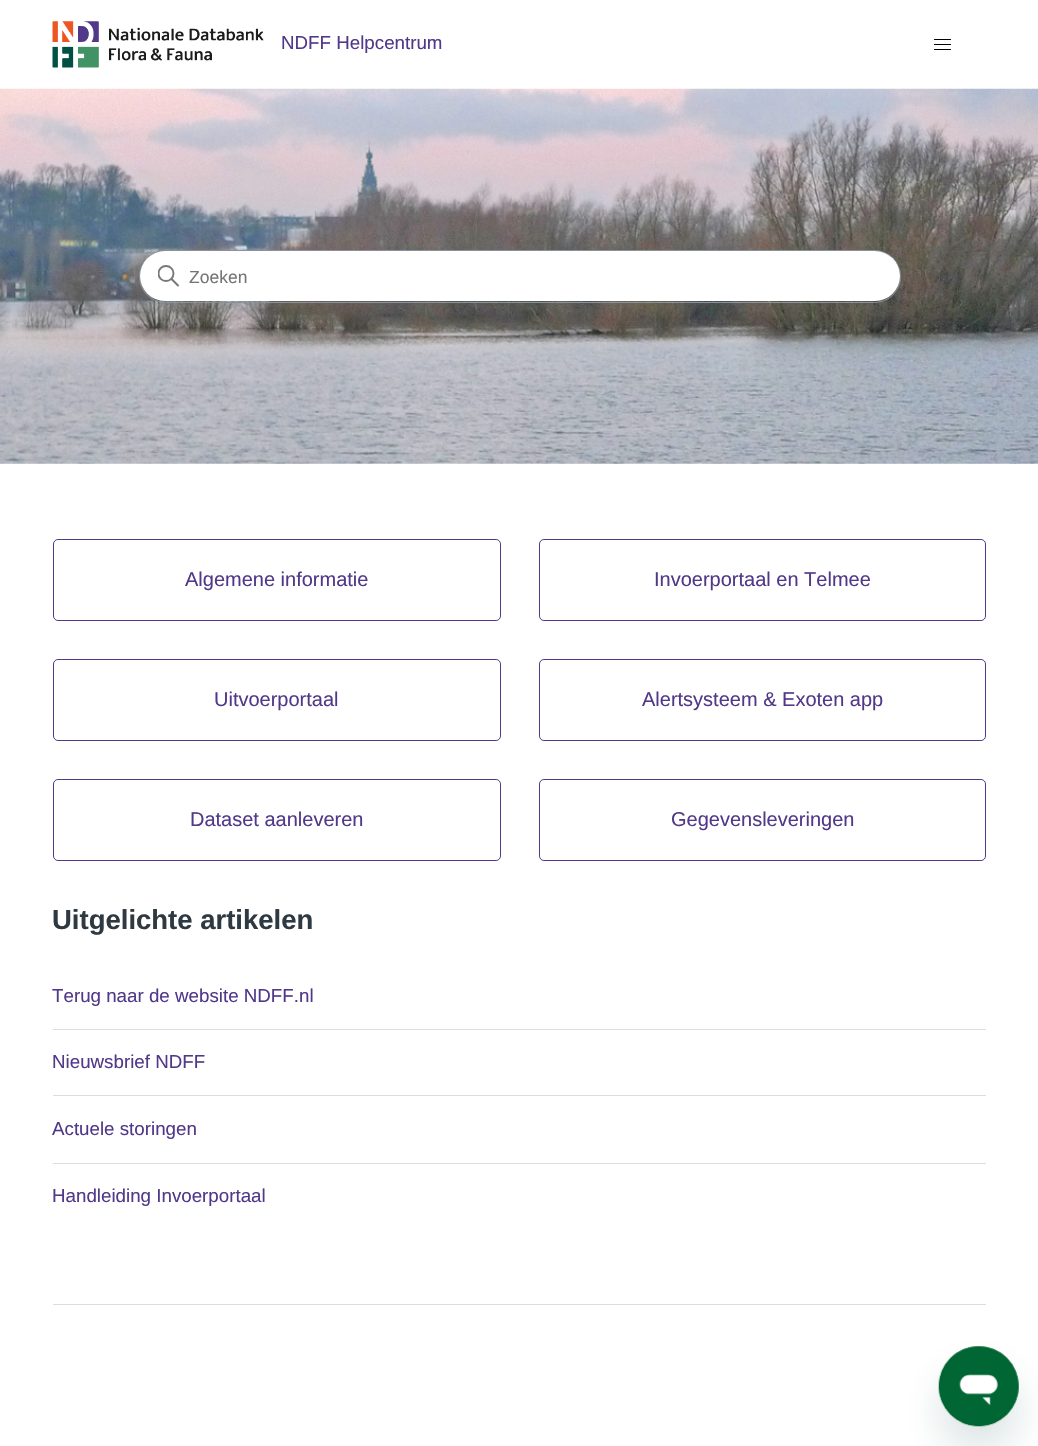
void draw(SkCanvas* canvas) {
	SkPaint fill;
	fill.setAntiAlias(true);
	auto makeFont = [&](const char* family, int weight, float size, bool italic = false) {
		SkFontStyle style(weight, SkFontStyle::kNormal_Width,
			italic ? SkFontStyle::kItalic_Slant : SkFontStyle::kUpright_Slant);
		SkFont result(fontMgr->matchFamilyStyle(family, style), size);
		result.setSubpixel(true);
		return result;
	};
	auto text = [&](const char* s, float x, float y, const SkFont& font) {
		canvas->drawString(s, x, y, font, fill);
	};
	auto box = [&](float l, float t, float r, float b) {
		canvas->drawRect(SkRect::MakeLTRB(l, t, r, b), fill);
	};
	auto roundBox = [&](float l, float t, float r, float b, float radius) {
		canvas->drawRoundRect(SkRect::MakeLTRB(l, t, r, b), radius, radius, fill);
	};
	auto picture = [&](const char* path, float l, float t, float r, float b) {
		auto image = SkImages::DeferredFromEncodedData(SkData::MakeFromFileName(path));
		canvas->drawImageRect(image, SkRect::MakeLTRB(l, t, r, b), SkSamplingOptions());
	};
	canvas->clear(0xFFFFFFFF);
	picture("image0.png", 52, 21, 264, 68);
	fill.setStyle(SkPaint::kStroke_Style);
	fill.setStrokeWidth(1.2f);
	fill.setStrokeCap(SkPaint::kRound_Cap);
	fill.setColor(0xFF000000);
	canvas->drawPath(SkPathBuilder().moveTo(934.5f, 39.5f).lineTo(950.5f, 39.5f).moveTo(934.5f, 44.5f).lineTo(950.5f, 44.5f).moveTo(934.5f, 49.5f).lineTo(950.5f, 49.5f).detach(), fill);
	picture("image1.png", 0, 88, 1038, 464);
	fill.setStrokeWidth(1);
	fill.setStrokeCap(SkPaint::kButt_Cap);
	fill.setColor(0xFF87929D);
	canvas->drawRoundRect(SkRect::MakeLTRB(139.5f, 250.5f, 900.5f, 302.5f), 26, 26, fill);
	fill.setStyle(SkPaint::kFill_Style);
	fill.setColor(0xFFFFFFFF);
	roundBox(140, 251, 900, 301, 25);
	canvas->save();
	canvas->clipRect(SkRect::MakeLTRB(158, 265, 180, 288));
	fill.setStyle(SkPaint::kStroke_Style);
	fill.setStrokeWidth(1.9f);
	fill.setColor(0xFF777777);
	canvas->drawCircle(166, 273.5f, 7.5f, fill);
	canvas->restore();
	fill.setStrokeCap(SkPaint::kRound_Cap);
	canvas->drawPath(SkPathBuilder().moveTo(178, 285.5f).lineTo(171.5f, 279).detach(), fill);
	fill.setStrokeWidth(1);
	fill.setStrokeCap(SkPaint::kButt_Cap);
	fill.setColor(0xFF523889);
	canvas->drawRoundRect(SkRect::MakeLTRB(53.5f, 539.5f, 500.5f, 620.5f), 4.5f, 4.5f, fill);
	canvas->drawRoundRect(SkRect::MakeLTRB(539.5f, 539.5f, 985.5f, 620.5f), 4.5f, 4.5f, fill);
	canvas->drawRoundRect(SkRect::MakeLTRB(53.5f, 659.5f, 500.5f, 740.5f), 4.5f, 4.5f, fill);
	canvas->drawRoundRect(SkRect::MakeLTRB(539.5f, 659.5f, 985.5f, 740.5f), 4.5f, 4.5f, fill);
	canvas->drawRoundRect(SkRect::MakeLTRB(53.5f, 779.5f, 500.5f, 860.5f), 4.5f, 4.5f, fill);
	canvas->drawRoundRect(SkRect::MakeLTRB(539.5f, 779.5f, 985.5f, 860.5f), 4.5f, 4.5f, fill);
	fill.setStyle(SkPaint::kFill_Style);
	fill.setColor(0xFFDDDDDD);
	box(53, 1029, 986, 1030);
	box(53, 1095, 986, 1096);
	box(53, 1163, 986, 1164);
	box(53, 1304, 986, 1305);
	fill.setColor(0x2617494D);
	fill.setMaskFilter(SkMaskFilter::MakeBlur(kNormal_SkBlurStyle, 19));
	canvas->drawRoundRect(SkRect::MakeLTRB(939, 1371, 1019, 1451), 40, 40, fill);
	fill.setMaskFilter(nullptr);
	picture("image2.png", 938, 1346, 1019, 1427);
	auto font1 = makeFont("Liberation Sans", 400, 18.75f);
	fill.setColor(0xFF523889);
	text("NDFF Helpcentrum", 281, 49, font1);
	auto font2 = makeFont("Liberation Sans", 400, 17.5f);
	fill.setColor(0xFF757575);
	text("Zoeken", 189, 283, font2);
	auto font3 = makeFont("Liberation Sans", 400, 20);
	fill.setColor(0xFF523889);
	text("Algemene informatie", 185, 586, font3);
	text("Invoerportaal en Telmee", 654, 586, font3);
	text("Uitvoerportaal", 214, 706, font3);
	text("Alertsysteem & Exoten app", 642, 706, font3);
	text("Dataset aanleveren", 190, 826, font3);
	text("Gegevensleveringen", 671, 826, font3);
	auto font4 = makeFont("Liberation Sans", 700, 27.5f);
	fill.setColor(0xFF2F3941);
	text("Uitgelichte artikelen", 52, 929, font4);
	fill.setColor(0xFF523889);
	text("Terug naar de website NDFF.nl", 52, 1002, font1);
	text("Nieuwsbrief NDFF", 52, 1068, font1);
	text("Actuele storingen", 52, 1135, font1);
	text("Handleiding Invoerportaal", 52, 1202, font1);
}
